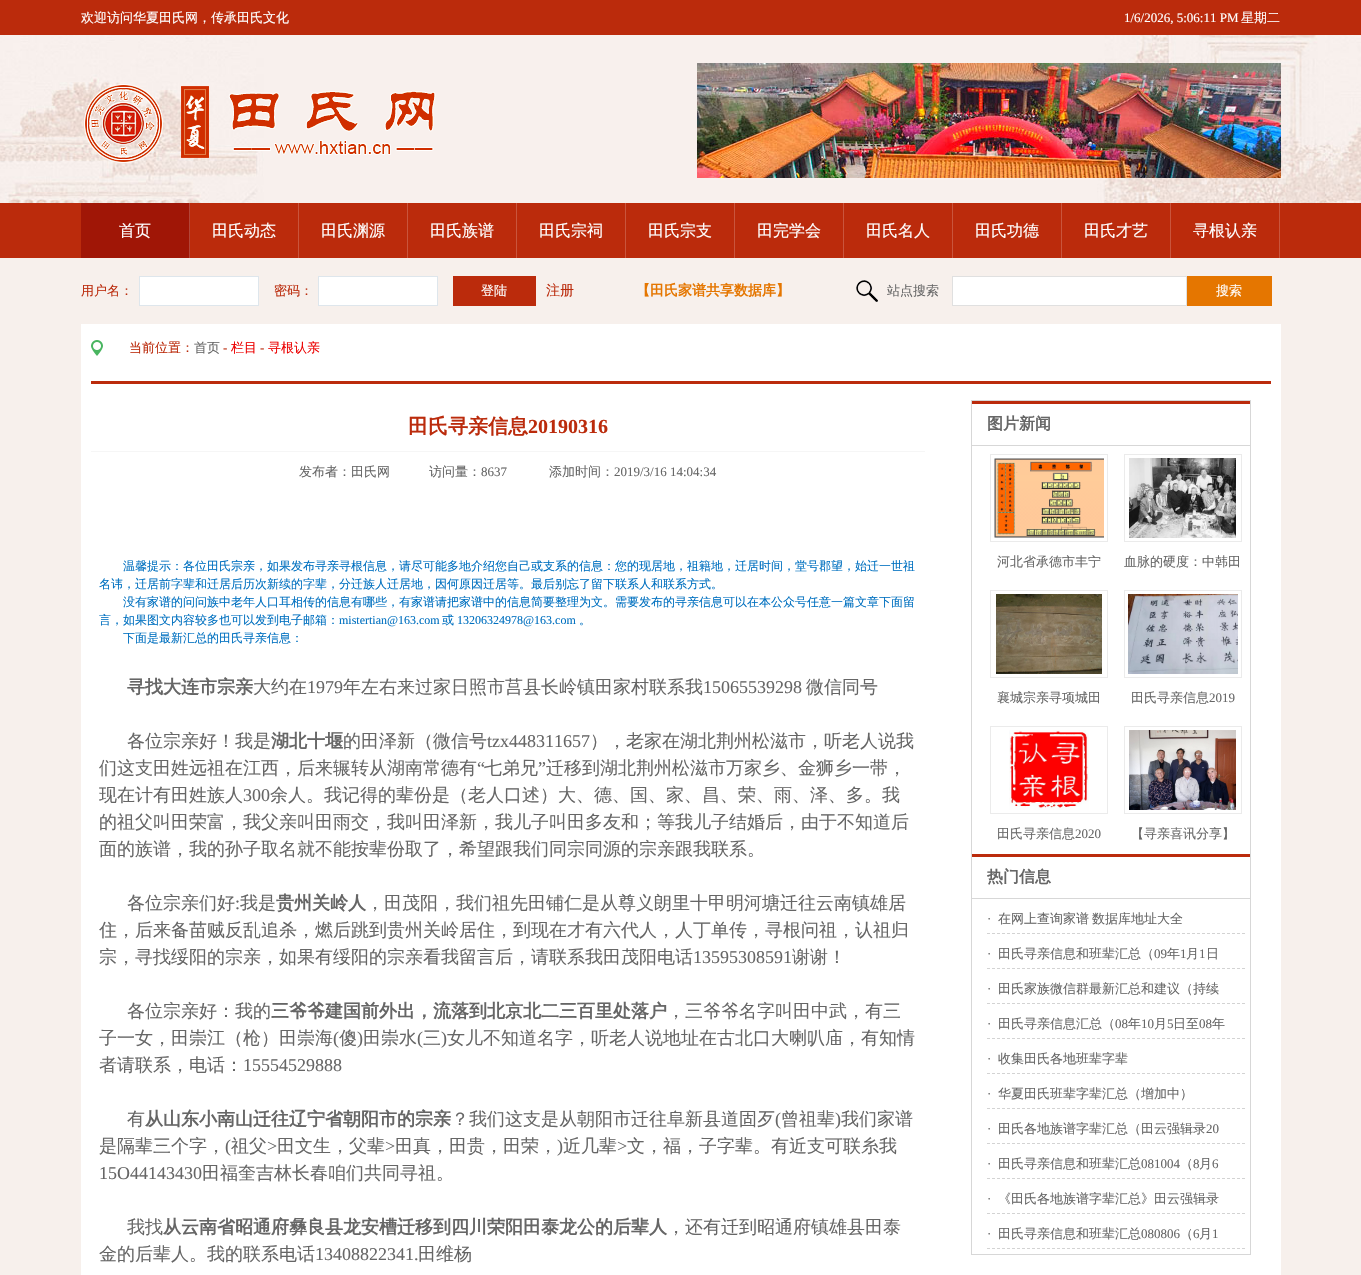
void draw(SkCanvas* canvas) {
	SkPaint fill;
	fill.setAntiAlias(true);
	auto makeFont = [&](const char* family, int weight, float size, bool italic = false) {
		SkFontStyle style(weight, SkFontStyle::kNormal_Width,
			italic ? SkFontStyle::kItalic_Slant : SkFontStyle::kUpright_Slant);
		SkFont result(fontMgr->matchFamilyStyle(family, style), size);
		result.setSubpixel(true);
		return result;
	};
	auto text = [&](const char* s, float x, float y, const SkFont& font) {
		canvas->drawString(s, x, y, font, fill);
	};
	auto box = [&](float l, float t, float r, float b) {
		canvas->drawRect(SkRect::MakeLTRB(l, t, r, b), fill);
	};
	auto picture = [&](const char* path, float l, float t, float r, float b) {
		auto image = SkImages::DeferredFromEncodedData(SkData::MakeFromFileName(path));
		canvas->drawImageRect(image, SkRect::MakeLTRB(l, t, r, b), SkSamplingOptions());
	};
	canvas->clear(0xFFF7F0EC);
	fill.setColor(0xFFBB2B0C);
	box(0, 0, 1361, 35);
	picture("image0.png", 0, 35, 1361, 203);
	picture("image1.png", 84, 84, 436, 163);
	picture("image2.png", 697, 63, 1281, 178);
	box(0, 203, 1361, 258);
	fill.setColor(0xFFA01606);
	box(81, 203, 189, 258);
	fill.setColor(0xFFB34538);
	box(189, 203, 190, 258);
	fill.setColor(0xFFC9553D);
	box(298, 203, 299, 258);
	box(407, 203, 408, 258);
	box(516, 203, 517, 258);
	box(625, 203, 626, 258);
	box(734, 203, 735, 258);
	box(843, 203, 844, 258);
	box(952, 203, 953, 258);
	box(1061, 203, 1062, 258);
	box(1170, 203, 1171, 258);
	box(1279, 203, 1280, 258);
	fill.setColor(0xFFFFFFFF);
	canvas->drawRect(SkRect::MakeLTRB(139.5f, 276.5f, 258.5f, 305.5f), fill);
	fill.setStyle(SkPaint::kStroke_Style);
	fill.setStrokeWidth(1);
	fill.setColor(0xFFDEE6EC);
	canvas->drawRect(SkRect::MakeLTRB(139.5f, 276.5f, 258.5f, 305.5f), fill);
	fill.setStyle(SkPaint::kFill_Style);
	fill.setColor(0xFFFFFFFF);
	canvas->drawRect(SkRect::MakeLTRB(318.5f, 276.5f, 437.5f, 305.5f), fill);
	fill.setStyle(SkPaint::kStroke_Style);
	fill.setColor(0xFFDEE6EC);
	canvas->drawRect(SkRect::MakeLTRB(318.5f, 276.5f, 437.5f, 305.5f), fill);
	fill.setStyle(SkPaint::kFill_Style);
	fill.setColor(0xFFBB2B0C);
	box(453, 276, 536, 306);
	picture("image3.png", 856, 280, 878, 302);
	fill.setColor(0xFFFFFFFF);
	canvas->drawRect(SkRect::MakeLTRB(952.5f, 276.5f, 1186.5f, 305.5f), fill);
	fill.setStyle(SkPaint::kStroke_Style);
	fill.setColor(0xFFE0E0E0);
	canvas->drawRect(SkRect::MakeLTRB(952.5f, 276.5f, 1186.5f, 305.5f), fill);
	fill.setStyle(SkPaint::kFill_Style);
	fill.setColor(0xFFE57600);
	box(1187, 276, 1272, 306);
	fill.setColor(0xFFFFFFFF);
	box(81, 324, 1281, 1275);
	picture("image4.png", 91, 340, 103, 356);
	fill.setColor(0xFFBB2B0C);
	box(91, 381, 1271, 384);
	fill.setColor(0xFFF6F6F6);
	box(91, 451, 925, 452);
	fill.setStyle(SkPaint::kStroke_Style);
	fill.setColor(0xFFD7D7D7);
	canvas->drawRect(SkRect::MakeLTRB(971.5f, 400.5f, 1250.5f, 1254.5f), fill);
	fill.setStyle(SkPaint::kFill_Style);
	fill.setColor(0xFFBB2B0C);
	box(972, 401, 1250, 404);
	fill.setColor(0xFFD7D7D7);
	box(972, 445, 1250, 446);
	fill.setStyle(SkPaint::kStroke_Style);
	fill.setColor(0xFFEBEBEB);
	canvas->drawRect(SkRect::MakeLTRB(990.5f, 454.5f, 1107.5f, 541.5f), fill);
	picture("image5.png", 994, 458, 1104, 538);
	canvas->drawRect(SkRect::MakeLTRB(1124.5f, 454.5f, 1241.5f, 541.5f), fill);
	picture("image6.png", 1129, 458, 1236, 538);
	canvas->drawRect(SkRect::MakeLTRB(990.5f, 590.5f, 1107.5f, 677.5f), fill);
	picture("image7.png", 996, 594, 1102, 674);
	canvas->drawRect(SkRect::MakeLTRB(1124.5f, 590.5f, 1241.5f, 677.5f), fill);
	picture("image8.png", 1128, 594, 1238, 674);
	canvas->drawRect(SkRect::MakeLTRB(990.5f, 726.5f, 1107.5f, 813.5f), fill);
	picture("image9.png", 1009, 730, 1089, 810);
	canvas->drawRect(SkRect::MakeLTRB(1124.5f, 726.5f, 1241.5f, 813.5f), fill);
	picture("image10.png", 1129, 730, 1236, 810);
	fill.setStyle(SkPaint::kFill_Style);
	fill.setColor(0xFFBB2B0C);
	box(972, 854, 1250, 857);
	fill.setColor(0xFFD7D7D7);
	box(972, 898, 1250, 899);
	fill.setStyle(SkPaint::kStroke_Style);
	fill.setColor(0xFFD3D3D3);
	fill.setPathEffect(SkDashPathEffect::Make({{3, 2}}, 0));
	canvas->drawPath(SkPathBuilder().moveTo(987, 933.5f).lineTo(1245, 933.5f).detach(), fill);
	fill.setPathEffect(nullptr);
	fill.setPathEffect(SkDashPathEffect::Make({{3, 2}}, 0));
	canvas->drawPath(SkPathBuilder().moveTo(987, 968.5f).lineTo(1245, 968.5f).detach(), fill);
	fill.setPathEffect(nullptr);
	fill.setPathEffect(SkDashPathEffect::Make({{3, 2}}, 0));
	canvas->drawPath(SkPathBuilder().moveTo(987, 1003.5f).lineTo(1245, 1003.5f).detach(), fill);
	fill.setPathEffect(nullptr);
	fill.setPathEffect(SkDashPathEffect::Make({{3, 2}}, 0));
	canvas->drawPath(SkPathBuilder().moveTo(987, 1038.5f).lineTo(1245, 1038.5f).detach(), fill);
	fill.setPathEffect(nullptr);
	fill.setPathEffect(SkDashPathEffect::Make({{3, 2}}, 0));
	canvas->drawPath(SkPathBuilder().moveTo(987, 1073.5f).lineTo(1245, 1073.5f).detach(), fill);
	fill.setPathEffect(nullptr);
	fill.setPathEffect(SkDashPathEffect::Make({{3, 2}}, 0));
	canvas->drawPath(SkPathBuilder().moveTo(987, 1108.5f).lineTo(1245, 1108.5f).detach(), fill);
	fill.setPathEffect(nullptr);
	fill.setPathEffect(SkDashPathEffect::Make({{3, 2}}, 0));
	canvas->drawPath(SkPathBuilder().moveTo(987, 1143.5f).lineTo(1245, 1143.5f).detach(), fill);
	fill.setPathEffect(nullptr);
	fill.setPathEffect(SkDashPathEffect::Make({{3, 2}}, 0));
	canvas->drawPath(SkPathBuilder().moveTo(987, 1178.5f).lineTo(1245, 1178.5f).detach(), fill);
	fill.setPathEffect(nullptr);
	fill.setPathEffect(SkDashPathEffect::Make({{3, 2}}, 0));
	canvas->drawPath(SkPathBuilder().moveTo(987, 1213.5f).lineTo(1245, 1213.5f).detach(), fill);
	fill.setPathEffect(nullptr);
	fill.setPathEffect(SkDashPathEffect::Make({{3, 2}}, 0));
	canvas->drawPath(SkPathBuilder().moveTo(987, 1248.5f).lineTo(1245, 1248.5f).detach(), fill);
	fill.setPathEffect(nullptr);
	auto font1 = makeFont("WenQuanYi Zen Hei", 500, 13);
	fill.setStyle(SkPaint::kFill_Style);
	fill.setColor(0xFFFFFFFF);
	text("欢迎访问华夏田氏网，传承田氏文化", 81, 22, font1);
	auto font2 = makeFont("Liberation Serif", 400, 13);
	text("1/6/2026, 5:06:11 PM", 1124, 22, font2);
	text("星期二", 1241, 22, font1);
	auto font3 = makeFont("WenQuanYi Zen Hei", 500, 16);
	text("首页", 119, 236, font3);
	text("田氏动态", 212, 236, font3);
	text("田氏渊源", 321, 236, font3);
	text("田氏族谱", 430, 236, font3);
	text("田氏宗祠", 539, 236, font3);
	text("田氏宗支", 648, 236, font3);
	text("田完学会", 757, 236, font3);
	text("田氏名人", 866, 236, font3);
	text("田氏功德", 975, 236, font3);
	text("田氏才艺", 1084, 236, font3);
	text("寻根认亲", 1193, 236, font3);
	fill.setColor(0xFFBB2B0C);
	text("用户名：", 81, 295, font1);
	text("密码：", 274, 295, font1);
	fill.setColor(0xFFFFFFFF);
	text("登陆", 481, 295, font1);
	auto font4 = makeFont("WenQuanYi Zen Hei", 500, 14);
	fill.setColor(0xFFBB2B0C);
	text("注册", 546, 295, font4);
	auto font5 = makeFont("WenQuanYi Zen Hei", 700, 14);
	fill.setColor(0xFFE57600);
	text("【田氏家谱共享数据库】", 636, 295, font5);
	fill.setColor(0xFF666666);
	text("站点搜索", 887, 295, font1);
	fill.setColor(0xFFFFFFFF);
	text("搜索", 1216, 295, font1);
	fill.setColor(0xFFBB2B0C);
	text("当前位置：", 129, 352, font1);
	fill.setColor(0xFF666666);
	text("首页", 194, 352, font1);
	fill.setColor(0xFFBB2B0C);
	text("-", 223, 352, font2);
	fill.setColor(0xFFEC0000);
	text("栏目", 231, 352, font1);
	fill.setColor(0xFFBB2B0C);
	text("-", 260, 352, font2);
	fill.setColor(0xFFEC0000);
	text("寻根认亲", 268, 352, font1);
	auto font6 = makeFont("WenQuanYi Zen Hei", 700, 20);
	fill.setColor(0xFFBB2B0C);
	text("田氏寻亲信息", 408, 433, font6);
	auto font7 = makeFont("Liberation Serif", 700, 20);
	text("20190316", 528, 433, font7);
	fill.setColor(0xFF666666);
	text("发布者：田氏网　　　访问量：", 299, 476, font1);
	text("8637", 481, 476, font2);
	text("添加时间：", 549, 476, font1);
	text("2019/3/16 14:04:34", 614, 476, font2);
	auto font8 = makeFont("WenQuanYi Zen Hei", 500, 12);
	fill.setColor(0xFF0070C0);
	text("温馨提示：各位田氏宗亲，如果发布寻亲寻根信息，请尽可能多地介绍您自己或支系的信息：您的现居地，祖籍地，迁居时间，堂号郡望，始迁一世祖", 123, 570, font8);
	text("名讳，迁居前字辈和迁居后历次新续的字辈，分迁族人迁居地，因何原因迁居等。最后别忘了留下联系人和联系方式。", 99, 588, font8);
	text("没有家谱的问问族中老年人口耳相传的信息有哪些，有家谱请把家谱中的信息简要整理为文。需要发布的寻亲信息可以在本公众号任意一篇文章下面留", 123, 606, font8);
	text("言，如果图文内容较多也可以发到电子邮箱：", 99, 624, font8);
	auto font9 = makeFont("Liberation Serif", 400, 12);
	text("mistertian@163.com", 339, 624, font9);
	text("或", 442, 624, font8);
	text("13206324978@163.com", 457, 624, font9);
	text("。", 579, 624, font8);
	text("下面是最新汇总的田氏寻亲信息：", 123, 642, font8);
	auto font10 = makeFont("WenQuanYi Zen Hei", 700, 18);
	fill.setColor(0xFF666666);
	text("寻找大连市宗亲", 127, 693, font10);
	auto font11 = makeFont("WenQuanYi Zen Hei", 500, 18);
	text("大约在", 253, 693, font11);
	auto font12 = makeFont("Liberation Serif", 400, 18);
	text("1979", 307, 693, font12);
	text("年左右来过家日照市莒县长岭镇田家村联系我", 343, 693, font11);
	text("15065539298", 703, 693, font12);
	text("微信同号", 806, 693, font11);
	text("各位宗亲好！我是", 127, 747, font11);
	text("湖北十堰", 271, 747, font10);
	text("的田泽新（微信号", 343, 747, font11);
	text("tzx448311657", 487, 747, font12);
	text("），老家在湖北荆州松滋市，听老人说我", 590, 747, font11);
	text("们这支田姓远祖在江西，后来辗转从湖南常德有", 99, 774, font11);
	text("“", 477, 774, font12);
	text("七弟兄", 484, 774, font11);
	text("”", 538, 774, font12);
	text("迁移到湖北荆州松滋市万家乡、金狮乡一带，", 546, 774, font11);
	text("现在计有田姓族人", 99, 801, font11);
	text("300", 243, 801, font12);
	text("余人。我记得的辈份是（老人口述）大、德、国、家、昌、荣、雨、泽、多。我", 270, 801, font11);
	text("的祖父叫田荣富，我父亲叫田雨交，我叫田泽新，我儿子叫田多友和；等我儿子结婚后，由于不知道后", 99, 828, font11);
	text("面的族谱，我的孙子取名就不能按辈份取了，希望跟我们同宗同源的宗亲跟我联系。", 99, 855, font11);
	text("各位宗亲们好", 127, 909, font11);
	text(":", 235, 909, font12);
	text("我是", 240, 909, font11);
	text("贵州关岭人", 276, 909, font10);
	text("，田茂阳，我们祖先田铺仁是从尊义朗里十甲明河塘迁往云南镇雄居", 366, 909, font11);
	text("住，后来备苗贼反乱追杀，燃后跳到贵州关岭居住，到现在才有六代人，人丁单传，寻根问祖，认祖归", 99, 936, font11);
	text("宗，寻找绥阳的宗亲，如果有绥阳的宗亲看我留言后，请联系我田茂阳电话", 99, 963, font11);
	text("13595308591", 693, 963, font12);
	text("谢谢！", 792, 963, font11);
	text("各位宗亲好：我的", 127, 1017, font11);
	text("三爷爷建国前外出，流落到北京北二三百里处落户", 271, 1017, font10);
	text("，三爷爷名字叫田中武，有三", 667, 1017, font11);
	text("子一女，田崇江（枪）田崇海", 99, 1044, font11);
	text("(", 333, 1044, font12);
	text("傻", 339, 1044, font11);
	text(")", 357, 1044, font12);
	text("田崇水", 363, 1044, font11);
	text("(", 417, 1044, font12);
	text("三", 423, 1044, font11);
	text(")", 441, 1044, font12);
	text("女儿不知道名字，听老人说地址在古北口大喇叭庙，有知情", 447, 1044, font11);
	text("者请联系，电话：", 99, 1071, font11);
	text("15554529888", 243, 1071, font12);
	text("有", 127, 1125, font11);
	text("从山东小南山迁往辽宁省朝阳市的宗亲", 145, 1125, font10);
	text("？我们这支是从朝阳市迁往阜新县道固歹", 451, 1125, font11);
	text("(", 775, 1125, font12);
	text("曾祖辈", 781, 1125, font11);
	text(")", 835, 1125, font12);
	text("我们家谱", 841, 1125, font11);
	text("是隔辈三个字，", 99, 1152, font11);
	text("(", 225, 1152, font12);
	text("祖父", 231, 1152, font11);
	text(">", 267, 1152, font12);
	text("田文生，父辈", 277, 1152, font11);
	text(">", 385, 1152, font12);
	text("田真，田贵，田荣，", 395, 1152, font11);
	text(")", 557, 1152, font12);
	text("近几辈", 563, 1152, font11);
	text(">", 617, 1152, font12);
	text("文，福，子字辈。有近支可联糸我", 627, 1152, font11);
	text("15O44143430", 99, 1179, font12);
	text("田福奎吉林长春咱们共同寻祖。", 202, 1179, font11);
	text("我找", 127, 1233, font11);
	text("从云南省昭通府彝良县龙安槽迁移到四川荣阳田泰龙公的后辈人", 163, 1233, font10);
	text("，还有迁到昭通府镇雄县田泰", 667, 1233, font11);
	text("金的后辈人。我的联系电话", 99, 1260, font11);
	text("13408822341.", 315, 1260, font12);
	text("田维杨", 418, 1260, font11);
	auto font13 = makeFont("WenQuanYi Zen Hei", 700, 16);
	text("图片新闻", 987, 429, font13);
	text("河北省承德市丰宁", 997, 566, font1);
	text("血脉的硬度：中韩田", 1124, 566, font1);
	text("襄城宗亲寻项城田", 997, 702, font1);
	text("田氏寻亲信息", 1131, 702, font1);
	text("2019", 1209, 702, font2);
	text("田氏寻亲信息", 997, 838, font1);
	text("2020", 1075, 838, font2);
	text("【寻亲喜讯分享】", 1131, 838, font1);
	text("热门信息", 987, 882, font13);
	text("·", 987, 923, font2);
	text("在网上查询家谱", 998, 923, font1);
	text("数据库地址大全", 1092, 923, font1);
	text("·", 987, 958, font2);
	text("田氏寻亲信息和班辈汇总（", 998, 958, font1);
	text("09", 1154, 958, font2);
	text("年", 1167, 958, font1);
	text("1", 1180, 958, font2);
	text("月", 1186, 958, font1);
	text("1", 1199, 958, font2);
	text("日", 1206, 958, font1);
	text("·", 987, 993, font2);
	text("田氏家族微信群最新汇总和建议（持续", 998, 993, font1);
	text("·", 987, 1028, font2);
	text("田氏寻亲信息汇总（", 998, 1028, font1);
	text("08", 1115, 1028, font2);
	text("年", 1128, 1028, font1);
	text("10", 1141, 1028, font2);
	text("月", 1154, 1028, font1);
	text("5", 1167, 1028, font2);
	text("日至", 1173, 1028, font1);
	text("08", 1199, 1028, font2);
	text("年", 1212, 1028, font1);
	text("·", 987, 1063, font2);
	text("收集田氏各地班辈字辈", 998, 1063, font1);
	text("·", 987, 1098, font2);
	text("华夏田氏班辈字辈汇总（增加中）", 998, 1098, font1);
	text("·", 987, 1133, font2);
	text("田氏各地族谱字辈汇总（田云强辑录", 998, 1133, font1);
	text("20", 1206, 1133, font2);
	text("·", 987, 1168, font2);
	text("田氏寻亲信息和班辈汇总", 998, 1168, font1);
	text("081004", 1141, 1168, font2);
	text("（", 1180, 1168, font1);
	text("8", 1193, 1168, font2);
	text("月", 1199, 1168, font1);
	text("6", 1212, 1168, font2);
	text("·", 987, 1203, font2);
	text("《田氏各地族谱字辈汇总》田云强辑录", 998, 1203, font1);
	text("·", 987, 1238, font2);
	text("田氏寻亲信息和班辈汇总", 998, 1238, font1);
	text("080806", 1141, 1238, font2);
	text("（", 1180, 1238, font1);
	text("6", 1193, 1238, font2);
	text("月", 1199, 1238, font1);
	text("1", 1212, 1238, font2);
}
